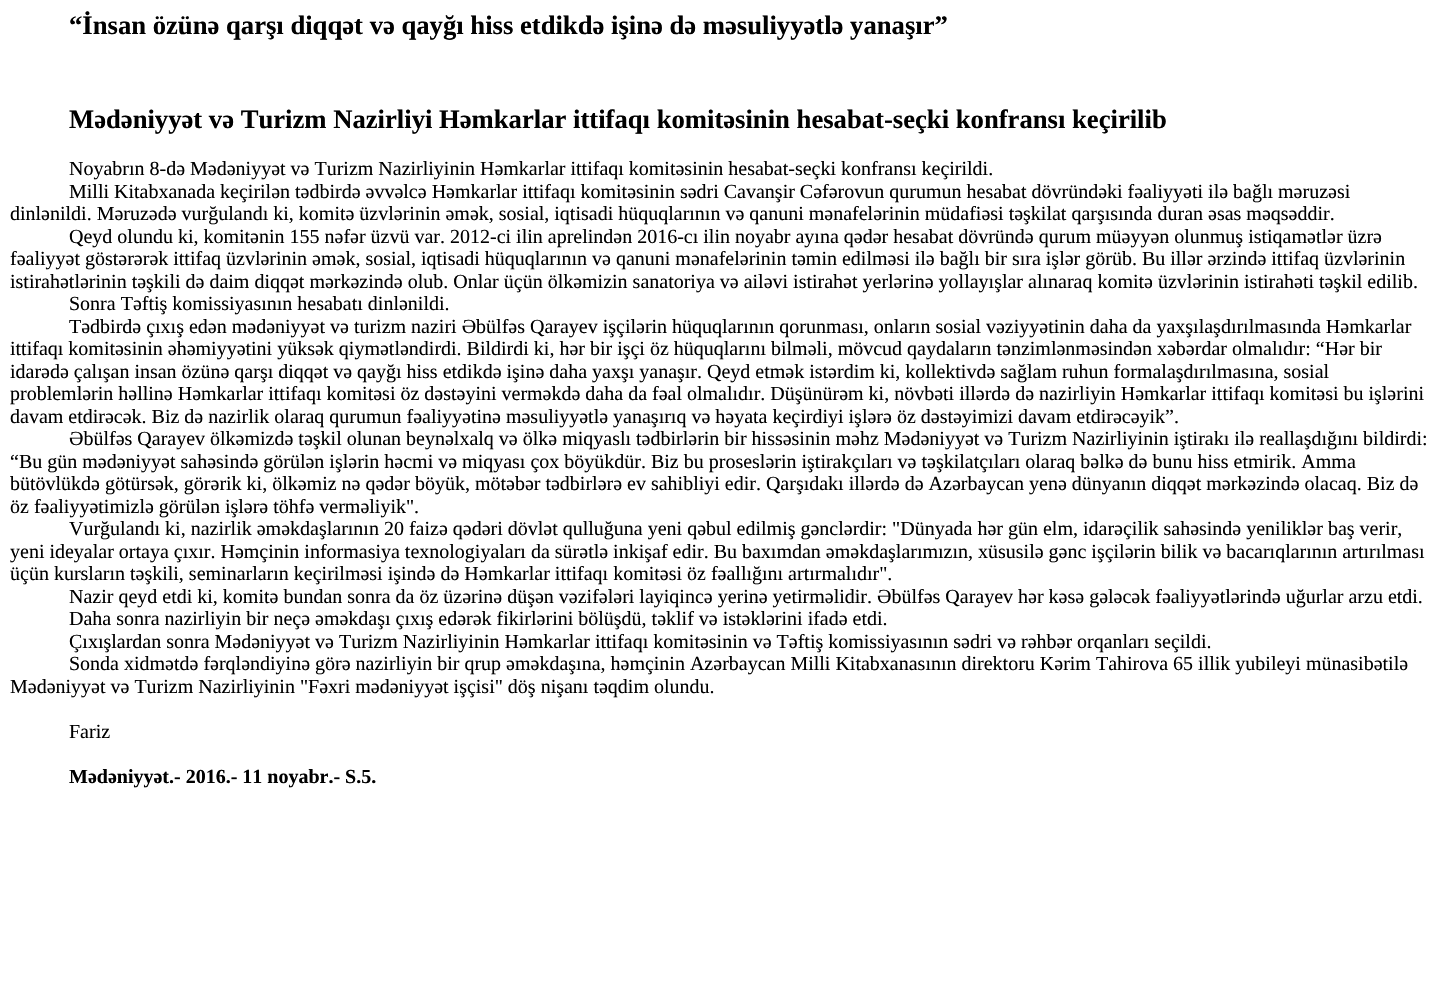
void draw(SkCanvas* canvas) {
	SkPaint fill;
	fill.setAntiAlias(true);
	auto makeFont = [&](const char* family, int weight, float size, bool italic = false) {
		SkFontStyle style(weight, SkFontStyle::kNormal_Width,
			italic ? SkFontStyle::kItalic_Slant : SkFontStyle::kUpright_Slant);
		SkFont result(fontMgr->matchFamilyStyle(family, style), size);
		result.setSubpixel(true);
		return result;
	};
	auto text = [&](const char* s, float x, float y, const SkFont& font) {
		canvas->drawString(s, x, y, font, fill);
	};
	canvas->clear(0xFFFFFFFF);
	auto font1 = makeFont("Liberation Serif", 700, 26.65f);
	fill.setColor(0xFF000000);
	text("“İnsan özünə qarşı diqqət və qayğı hiss etdikdə işinə də məsuliyyətlə yanaşır”", 69, 34, font1);
	text("Mədəniyyət və Turizm Nazirliyi Həmkarlar ittifaqı komitəsinin hesabat-seçki konfransı keçirilib", 69, 128, font1);
	auto font2 = makeFont("Liberation Serif", 400, 20);
	text("Noyabrın 8-də Mədəniyyət və Turizm Nazirliyinin Həmkarlar ittifaqı komitəsinin hesabat-seçki konfransı keçirildi.", 69, 175, font2);
	text("Milli Kitabxanada keçirilən tədbirdə əvvəlcə Həmkarlar ittifaqı komitəsinin sədri Cavanşir Cəfərovun qurumun hesabat dövründəki fəaliyyəti ilə bağlı məruzəsi", 69, 198, font2);
	text("dinlənildi. Məruzədə vurğulandı ki, komitə üzvlərinin əmək, sosial, iqtisadi hüquqlarının və qanuni mənafelərinin müdafiəsi təşkilat qarşısında duran əsas məqsəddir.", 10, 220, font2);
	text("Qeyd olundu ki, komitənin 155 nəfər üzvü var. 2012-ci ilin aprelindən 2016-cı ilin noyabr ayına qədər hesabat dövründə qurum müəyyən olunmuş istiqamətlər üzrə", 69, 243, font2);
	text("fəaliyyət göstərərək ittifaq üzvlərinin əmək, sosial, iqtisadi hüquqlarının və qanuni mənafelərinin təmin edilməsi ilə bağlı bir sıra işlər görüb. Bu illər ərzində ittifaq üzvlərinin", 10, 265, font2);
	text("istirahətlərinin təşkili də daim diqqət mərkəzində olub. Onlar üçün ölkəmizin sanatoriya və ailəvi istirahət yerlərinə yollayışlar alınaraq komitə üzvlərinin istirahəti təşkil edilib.", 10, 288, font2);
	text("Sonra Təftiş komissiyasının hesabatı dinlənildi.", 69, 310, font2);
	text("Tədbirdə çıxış edən mədəniyyət və turizm naziri Əbülfəs Qarayev işçilərin hüquqlarının qorunması, onların sosial vəziyyətinin daha da yaxşılaşdırılmasında Həmkarlar", 69, 333, font2);
	text("ittifaqı komitəsinin əhəmiyyətini yüksək qiymətləndirdi. Bildirdi ki, hər bir işçi öz hüquqlarını bilməli, mövcud qaydaların tənzimlənməsindən xəbərdar olmalıdır: “Hər bir", 10, 355, font2);
	text("idarədə çalışan insan özünə qarşı diqqət və qayğı hiss etdikdə işinə daha yaxşı yanaşır. Qeyd etmək istərdim ki, kollektivdə sağlam ruhun formalaşdırılmasına, sosial", 10, 378, font2);
	text("problemlərin həllinə Həmkarlar ittifaqı komitəsi öz dəstəyini verməkdə daha da fəal olmalıdır. Düşünürəm ki, növbəti illərdə də nazirliyin Həmkarlar ittifaqı komitəsi bu işlərini", 10, 400, font2);
	text("davam etdirəcək. Biz də nazirlik olaraq qurumun fəaliyyətinə məsuliyyətlə yanaşırıq və həyata keçirdiyi işlərə öz dəstəyimizi davam etdirəcəyik”.", 10, 423, font2);
	text("Əbülfəs Qarayev ölkəmizdə təşkil olunan beynəlxalq və ölkə miqyaslı tədbirlərin bir hissəsinin məhz Mədəniyyət və Turizm Nazirliyinin iştirakı ilə reallaşdığını bildirdi:", 69, 445, font2);
	text("“Bu gün mədəniyyət sahəsində görülən işlərin həcmi və miqyası çox böyükdür. Biz bu proseslərin iştirakçıları və təşkilatçıları olaraq bəlkə də bunu hiss etmirik. Amma", 10, 468, font2);
	text("bütövlükdə götürsək, görərik ki, ölkəmiz nə qədər böyük, mötəbər tədbirlərə ev sahibliyi edir. Qarşıdakı illərdə də Azərbaycan yenə dünyanın diqqət mərkəzində olacaq. Biz də", 10, 490, font2);
	text("öz fəaliyyətimizlə görülən işlərə töhfə verməliyik\".", 10, 513, font2);
	text("Vurğulandı ki, nazirlik əməkdaşlarının 20 faizə qədəri dövlət qulluğuna yeni qəbul edilmiş gənclərdir: \"Dünyada hər gün elm, idarəçilik sahəsində yeniliklər baş verir,", 69, 535, font2);
	text("yeni ideyalar ortaya çıxır. Həmçinin informasiya texnologiyaları da sürətlə inkişaf edir. Bu baxımdan əməkdaşlarımızın, xüsusilə gənc işçilərin bilik və bacarıqlarının artırılması", 10, 558, font2);
	text("üçün kursların təşkili, seminarların keçirilməsi işində də Həmkarlar ittifaqı komitəsi öz fəallığını artırmalıdır\".", 10, 580, font2);
	text("Nazir qeyd etdi ki, komitə bundan sonra da öz üzərinə düşən vəzifələri layiqincə yerinə yetirməlidir. Əbülfəs Qarayev hər kəsə gələcək fəaliyyətlərində uğurlar arzu etdi.", 69, 603, font2);
	text("Daha sonra nazirliyin bir neçə əməkdaşı çıxış edərək fikirlərini bölüşdü, təklif və istəklərini ifadə etdi.", 69, 625, font2);
	text("Çıxışlardan sonra Mədəniyyət və Turizm Nazirliyinin Həmkarlar ittifaqı komitəsinin və Təftiş komissiyasının sədri və rəhbər orqanları seçildi.", 69, 648, font2);
	text("Sonda xidmətdə fərqləndiyinə görə nazirliyin bir qrup əməkdaşına, həmçinin Azərbaycan Milli Kitabxanasının direktoru Kərim Tahirova 65 illik yubileyi münasibətilə", 69, 670, font2);
	text("Mədəniyyət və Turizm Nazirliyinin \"Fəxri mədəniyyət işçisi\" döş nişanı təqdim olundu.", 10, 693, font2);
	text("Fariz", 69, 738, font2);
	auto font3 = makeFont("Liberation Serif", 700, 20);
	text("Mədəniyyət.- 2016.- 11 noyabr.- S.5.", 69, 783, font3);
}
